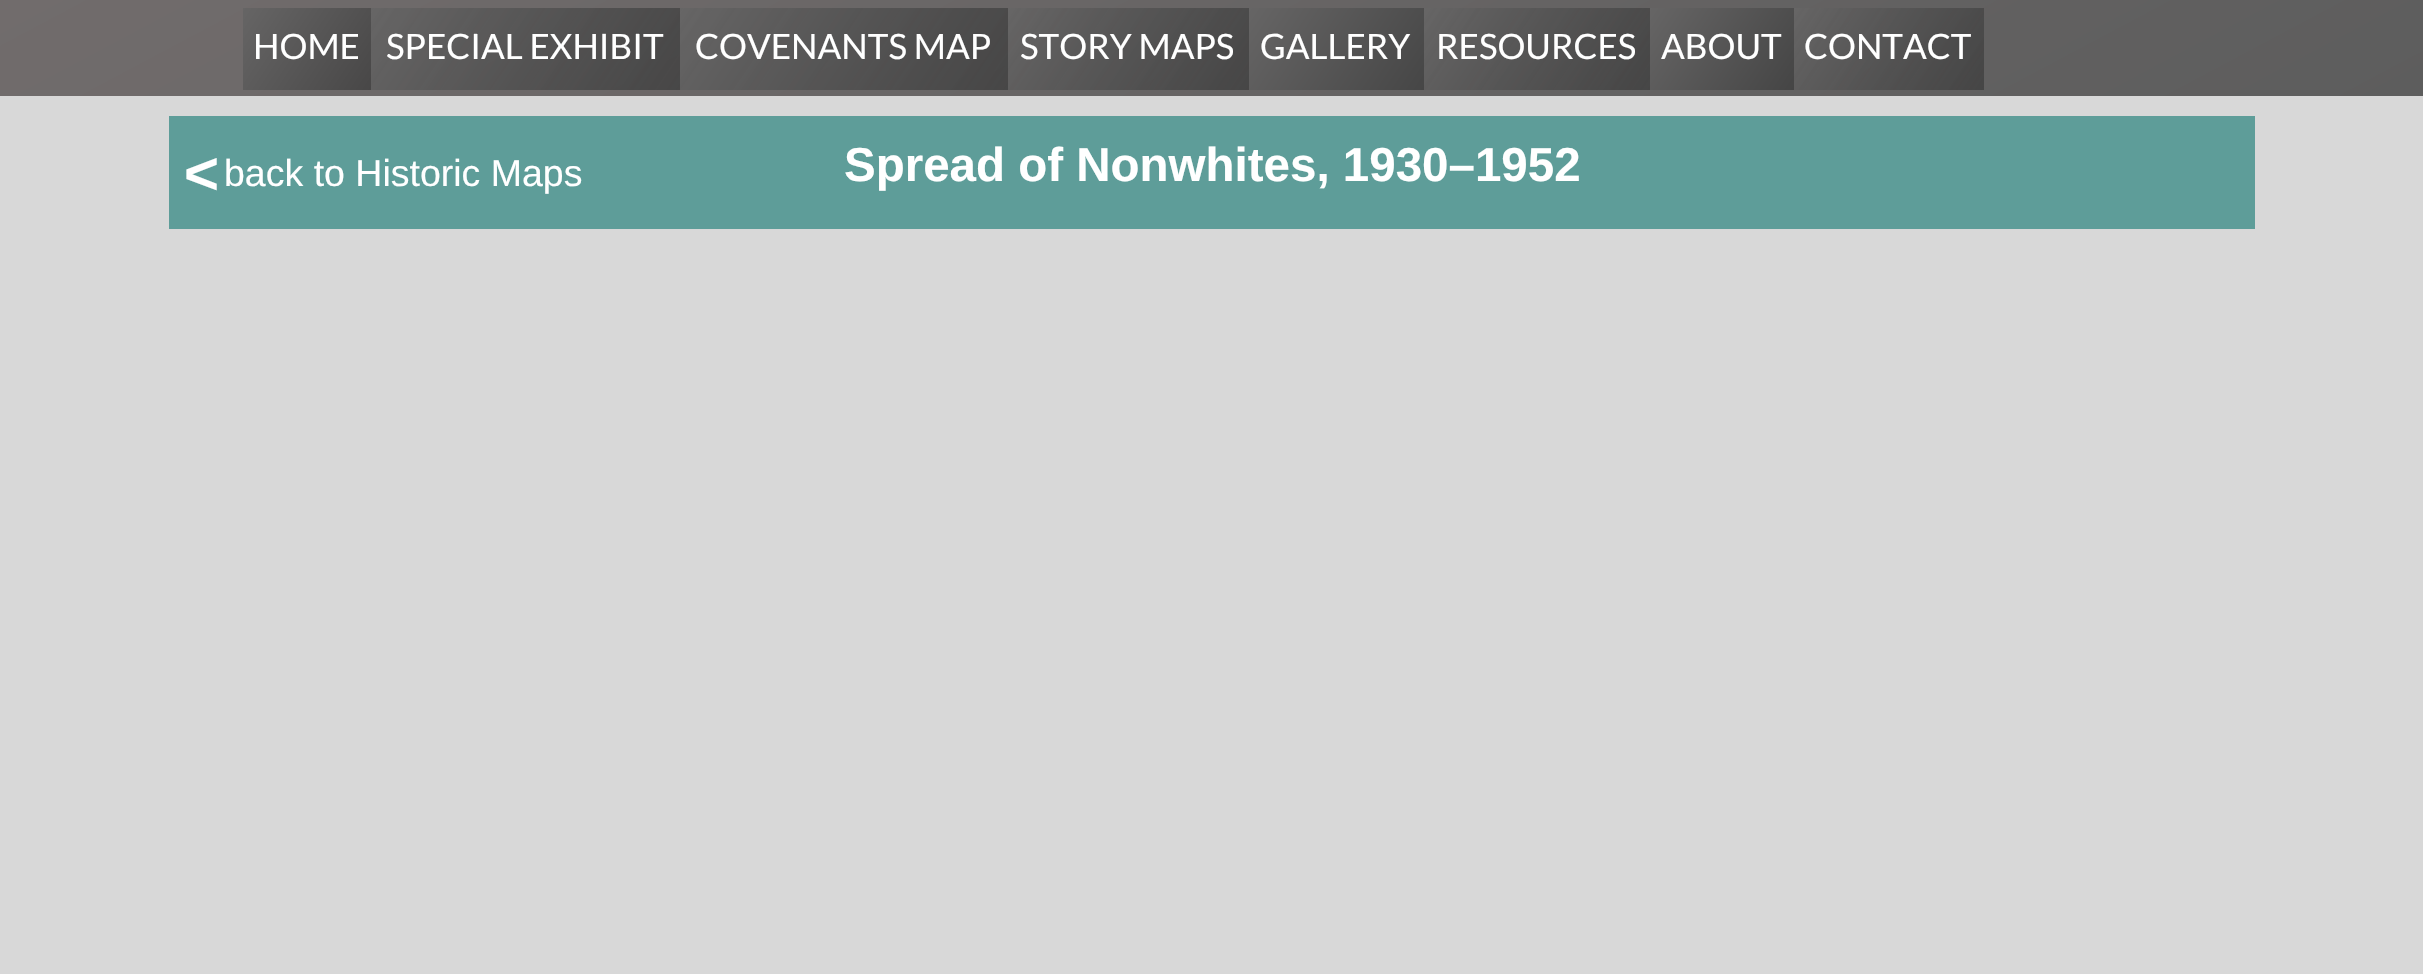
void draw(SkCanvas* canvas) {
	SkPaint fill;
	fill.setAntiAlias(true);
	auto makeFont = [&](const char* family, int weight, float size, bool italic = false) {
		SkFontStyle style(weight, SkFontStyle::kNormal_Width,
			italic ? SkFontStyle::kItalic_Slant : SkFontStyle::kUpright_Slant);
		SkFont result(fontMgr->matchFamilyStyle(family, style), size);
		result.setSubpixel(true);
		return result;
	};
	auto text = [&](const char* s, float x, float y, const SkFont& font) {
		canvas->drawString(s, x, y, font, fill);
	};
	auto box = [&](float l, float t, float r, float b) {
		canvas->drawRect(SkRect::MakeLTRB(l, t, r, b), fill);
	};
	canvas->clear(0xFFD8D8D8);
	{
		const SkColor colors[] = {0xFF5D5D5D, 0xFF716C6C};
		const float stops[] = {0, 1};
		const SkPoint ends[] = {{1499, 588}, {925, -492}};
		fill.setShader(SkGradientShader::MakeLinear(ends, colors, stops, 2, SkTileMode::kClamp));
		fill.setAlpha(255);
	}
	box(0, 0, 2423, 96);
	{
		const SkColor colors[] = {0xFF484747, 0xFF666565};
		const float stops[] = {0, 1};
		const SkPoint ends[] = {{370, 91}, {244, 6}};
		fill.setShader(SkGradientShader::MakeLinear(ends, colors, stops, 2, SkTileMode::kClamp));
		fill.setAlpha(255);
	}
	box(243, 8, 371, 90);
	{
		const SkColor colors[] = {0xCC3E3E3E, 0xFF666565};
		const float stops[] = {0, 1};
		const SkPoint ends[] = {{651, 133}, {400, -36}};
		fill.setShader(SkGradientShader::MakeLinear(ends, colors, stops, 2, SkTileMode::kClamp));
		fill.setAlpha(255);
	}
	box(371, 8, 680, 90);
	{
		const SkColor colors[] = {0xCC3E3E3E, 0xFF666565};
		const float stops[] = {0, 1};
		const SkPoint ends[] = {{975, 138}, {712, -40}};
		fill.setShader(SkGradientShader::MakeLinear(ends, colors, stops, 2, SkTileMode::kClamp));
		fill.setAlpha(255);
	}
	box(680, 8, 1008, 90);
	{
		const SkColor colors[] = {0xCC3E3E3E, 0xFF666565};
		const float stops[] = {0, 1};
		const SkPoint ends[] = {{1230, 118}, {1026, -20}};
		fill.setShader(SkGradientShader::MakeLinear(ends, colors, stops, 2, SkTileMode::kClamp));
		fill.setAlpha(255);
	}
	box(1008, 8, 1249, 90);
	{
		const SkColor colors[] = {0xFF464646, 0xFF666565};
		const float stops[] = {0, 1};
		const SkPoint ends[] = {{1416, 102}, {1257, -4.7f}};
		fill.setShader(SkGradientShader::MakeLinear(ends, colors, stops, 2, SkTileMode::kClamp));
		fill.setAlpha(255);
	}
	box(1249, 8, 1424, 90);
	{
		const SkColor colors[] = {0xCC3E3E3E, 0xFF666565};
		const float stops[] = {0, 1};
		const SkPoint ends[] = {{1634, 114}, {1440, -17}};
		fill.setShader(SkGradientShader::MakeLinear(ends, colors, stops, 2, SkTileMode::kClamp));
		fill.setAlpha(255);
	}
	box(1424, 8, 1650, 90);
	{
		const SkColor colors[] = {0xFF454545, 0xFF666565};
		const float stops[] = {0, 1};
		const SkPoint ends[] = {{1790, 95}, {1653, 2.5f}};
		fill.setShader(SkGradientShader::MakeLinear(ends, colors, stops, 2, SkTileMode::kClamp));
		fill.setAlpha(255);
	}
	box(1650, 8, 1794, 90);
	{
		const SkColor colors[] = {0xCC3E3E3E, 0xFF666565};
		const float stops[] = {0, 1};
		const SkPoint ends[] = {{1973, 106}, {1804, -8}};
		fill.setShader(SkGradientShader::MakeLinear(ends, colors, stops, 2, SkTileMode::kClamp));
		fill.setAlpha(255);
	}
	box(1794, 8, 1984, 90);
	fill.setShader(nullptr);
	fill.setColor(0xFF5E9D99);
	box(169, 116, 2255, 229);
	auto font1 = makeFont("Lato", 400, 35);
	fill.setColor(0xFFFFFFFF);
	text("HOME", 253, 59, font1);
	text("SPECIAL EXHIBIT", 386, 59, font1);
	text("COVENANTS MAP", 695, 59, font1);
	text("STORY MAPS", 1020, 59, font1);
	text("GALLERY", 1260, 59, font1);
	text("RESOURCES", 1436, 59, font1);
	text("ABOUT", 1661, 59, font1);
	text("CONTACT", 1804, 59, font1);
	auto font2 = makeFont("Liberation Sans", 700, 60);
	text("<", 184, 194, font2);
	auto font3 = makeFont("Liberation Sans", 400, 37.5f);
	text("back to Historic Maps", 224, 186, font3);
	auto font4 = makeFont("Liberation Sans", 700, 47.5f);
	text("Spread of Nonwhites, 1930–1952", 844, 181, font4);
}
